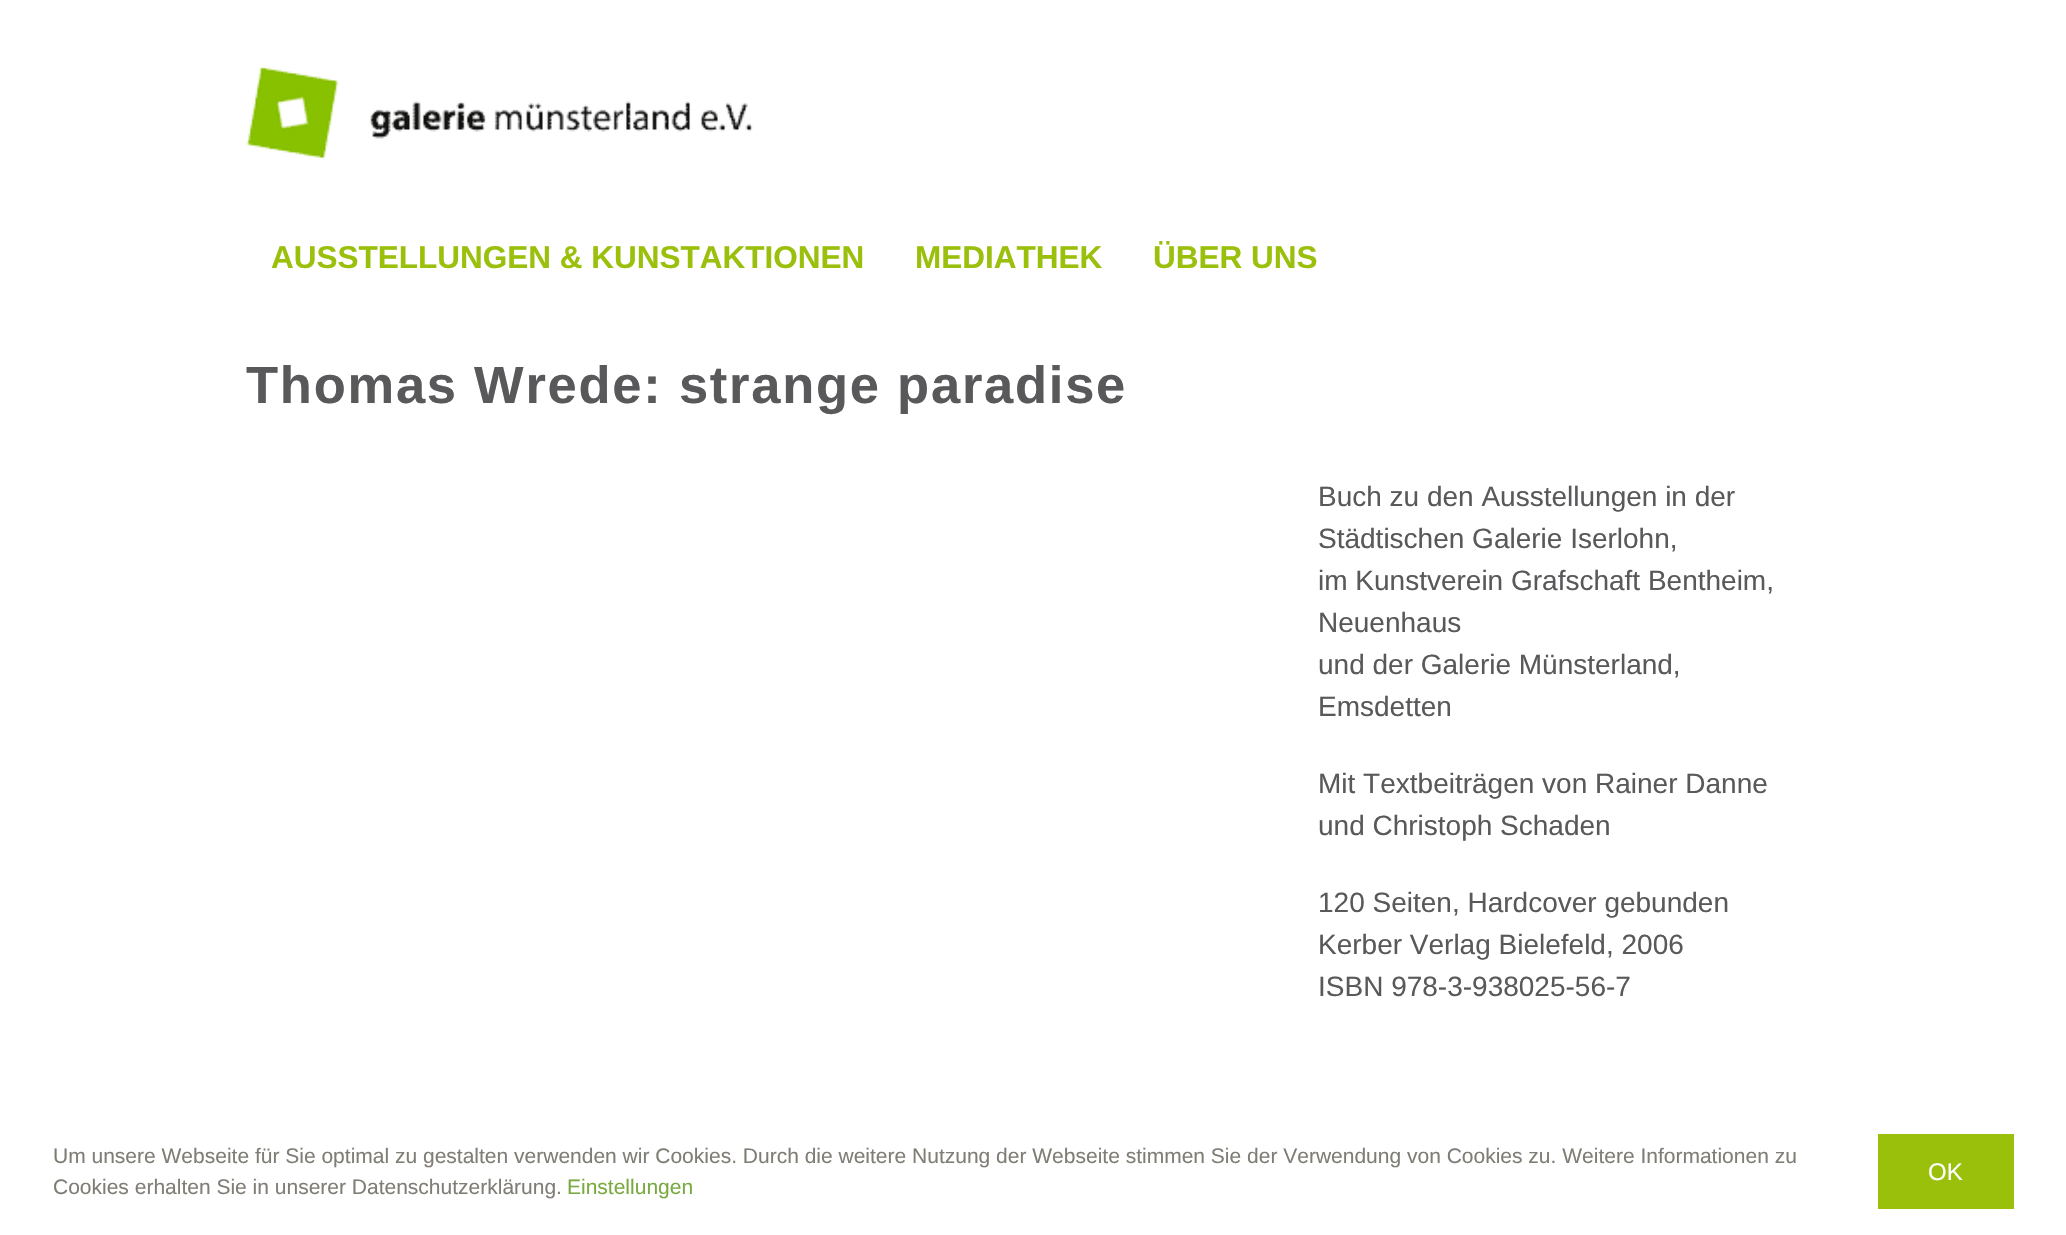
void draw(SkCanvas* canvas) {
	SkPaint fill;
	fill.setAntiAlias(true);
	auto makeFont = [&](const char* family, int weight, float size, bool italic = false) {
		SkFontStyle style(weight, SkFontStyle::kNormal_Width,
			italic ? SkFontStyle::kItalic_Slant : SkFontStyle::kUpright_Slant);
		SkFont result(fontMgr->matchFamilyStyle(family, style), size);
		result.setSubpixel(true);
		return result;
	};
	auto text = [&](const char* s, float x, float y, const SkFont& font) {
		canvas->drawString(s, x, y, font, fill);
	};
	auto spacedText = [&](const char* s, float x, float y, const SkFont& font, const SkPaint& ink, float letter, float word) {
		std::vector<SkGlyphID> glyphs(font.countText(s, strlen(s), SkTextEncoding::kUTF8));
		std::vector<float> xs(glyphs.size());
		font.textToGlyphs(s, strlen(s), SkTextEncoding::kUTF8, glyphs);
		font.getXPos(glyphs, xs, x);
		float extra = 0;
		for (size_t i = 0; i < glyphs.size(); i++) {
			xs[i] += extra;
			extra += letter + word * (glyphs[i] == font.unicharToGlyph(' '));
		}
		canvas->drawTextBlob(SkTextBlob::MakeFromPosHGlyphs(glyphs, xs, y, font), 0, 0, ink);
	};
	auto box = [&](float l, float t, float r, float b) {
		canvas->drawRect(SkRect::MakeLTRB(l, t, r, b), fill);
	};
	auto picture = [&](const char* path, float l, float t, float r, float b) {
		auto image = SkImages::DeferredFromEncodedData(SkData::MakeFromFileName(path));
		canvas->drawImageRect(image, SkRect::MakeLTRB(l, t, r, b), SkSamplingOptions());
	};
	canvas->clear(0xFFFFFFFF);
	picture("image0.png", 246, 66, 753, 160);
	fill.setColor(0xFF9AC00C);
	box(1878, 1134, 2014, 1209);
	auto font1 = makeFont("Liberation Sans", 700, 31.5f);
	text("AUSSTELLUNGEN & KUNSTAKTIONEN", 271, 268, font1);
	text("MEDIATHEK", 915, 268, font1);
	text("ÜBER UNS", 1153, 268, font1);
	auto font2 = makeFont("Liberation Sans", 700, 52.5f);
	fill.setColor(0xFF59595B);
	spacedText("Thomas Wrede: strange paradise", 246, 403, font2, fill, 1.75f, 0);
	auto font3 = makeFont("Liberation Sans", 400, 28);
	text("Buch zu den Ausstellungen in der", 1318, 506, font3);
	text("Städtischen Galerie Iserlohn,", 1318, 548, font3);
	text("im Kunstverein Grafschaft Bentheim,", 1318, 590, font3);
	text("Neuenhaus", 1318, 632, font3);
	text("und der Galerie Münsterland,", 1318, 674, font3);
	text("Emsdetten", 1318, 716, font3);
	text("Mit Textbeiträgen von Rainer Danne", 1318, 793, font3);
	text("und Christoph Schaden", 1318, 835, font3);
	text("120 Seiten, Hardcover gebunden", 1318, 912, font3);
	text("Kerber Verlag Bielefeld, 2006", 1318, 954, font3);
	text("ISBN 978-3-938025-56-7", 1318, 996, font3);
	auto font4 = makeFont("Liberation Sans", 400, 21);
	fill.setColor(0xFF7F7D75);
	text("Um unsere Webseite für Sie optimal zu gestalten verwenden wir Cookies. Durch die weitere Nutzung der Webseite stimmen Sie der Verwendung von Cookies zu. Weitere Informationen zu", 53, 1163, font4);
	text("Cookies erhalten Sie in unserer Datenschutzerklärung.", 53, 1194, font4);
	fill.setColor(0xFF79AA40);
	text("Einstellungen", 567, 1194, font4);
	auto font5 = makeFont("Liberation Sans", 400, 24);
	fill.setColor(0xFFFFFFFF);
	text("OK", 1928, 1180, font5);
}
